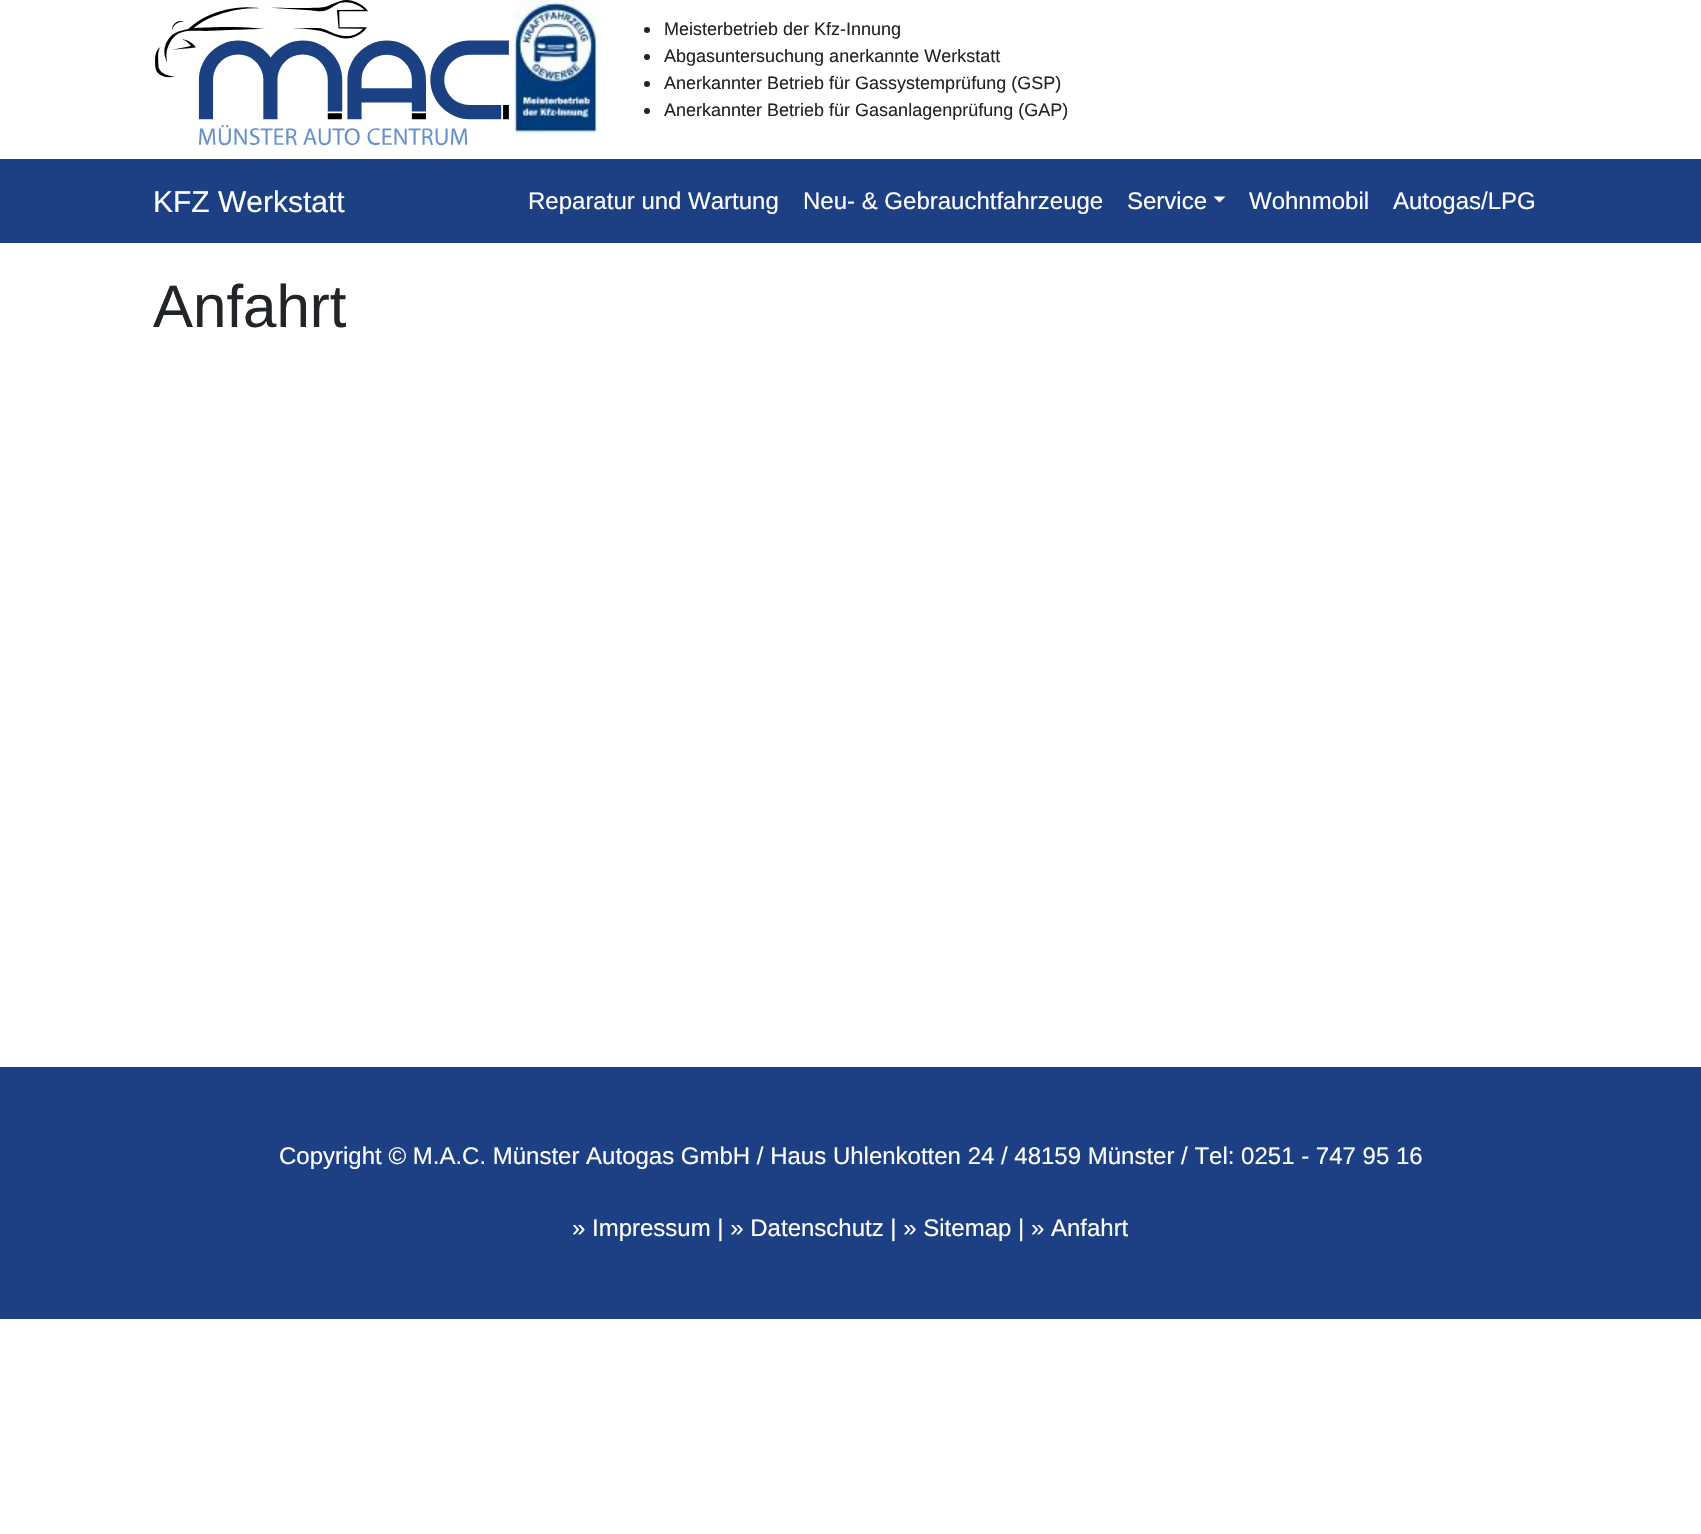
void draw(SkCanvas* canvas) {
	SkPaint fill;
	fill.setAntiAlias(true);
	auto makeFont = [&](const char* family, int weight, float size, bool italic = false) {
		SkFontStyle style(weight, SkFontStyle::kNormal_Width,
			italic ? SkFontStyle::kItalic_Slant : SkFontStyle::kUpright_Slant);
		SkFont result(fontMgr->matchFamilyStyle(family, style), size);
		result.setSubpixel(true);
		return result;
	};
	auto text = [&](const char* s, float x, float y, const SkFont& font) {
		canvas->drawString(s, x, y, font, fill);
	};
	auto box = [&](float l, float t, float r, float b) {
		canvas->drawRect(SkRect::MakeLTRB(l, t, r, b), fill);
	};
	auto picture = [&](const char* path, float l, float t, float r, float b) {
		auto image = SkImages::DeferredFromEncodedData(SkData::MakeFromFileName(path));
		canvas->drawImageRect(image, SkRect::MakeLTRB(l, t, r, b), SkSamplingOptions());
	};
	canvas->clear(0xFFFFFFFF);
	picture("image0.png", 155, 0, 509, 146);
	picture("image1.png", 513, 0, 599, 135);
	fill.setColor(0xFF212529);
	canvas->drawCircle(647, 30, 3, fill);
	canvas->drawCircle(647, 57, 3, fill);
	canvas->drawCircle(647, 84, 3, fill);
	canvas->drawCircle(647, 111, 3, fill);
	fill.setColor(0xFF1D4084);
	box(0, 159, 1701, 243);
	fill.setColor(0xFFFFFFFF);
	canvas->drawPath(SkPathBuilder().moveTo(1213.5f, 196.5f).lineTo(1225.5f, 196.5f).lineTo(1219.5f, 202.5f).close().detach(), fill);
	fill.setColor(0xFF1D4084);
	box(0, 1067, 1701, 1319);
	auto font1 = makeFont("Liberation Sans", 400, 18);
	fill.setColor(0xFF212529);
	text("Meisterbetrieb der Kfz-Innung", 664, 35, font1);
	text("Abgasuntersuchung anerkannte Werkstatt", 664, 62, font1);
	text("Anerkannter Betrieb für Gassystemprüfung (GSP)", 664, 89, font1);
	text("Anerkannter Betrieb für Gasanlagenprüfung (GAP)", 664, 116, font1);
	auto font2 = makeFont("Liberation Sans", 400, 30);
	fill.setColor(0xFFFFFFFF);
	text("KFZ Werkstatt", 153, 212, font2);
	auto font3 = makeFont("Liberation Sans", 400, 24);
	text("Reparatur und Wartung", 528, 209, font3);
	text("Neu- & Gebrauchtfahrzeuge", 803, 209, font3);
	text("Service", 1127, 209, font3);
	text("Wohnmobil", 1249, 209, font3);
	text("Autogas/LPG", 1393, 209, font3);
	auto font4 = makeFont("Liberation Sans", 400, 60);
	fill.setColor(0xFF212529);
	text("Anfahrt", 153, 327, font4);
	fill.setColor(0xFFFFFFFF);
	text("Copyright © M.A.C. Münster Autogas GmbH / Haus Uhlenkotten 24 / 48159 Münster / Tel: 0251 - 747 95 16", 279, 1164, font3);
	text("» Impressum | » Datenschutz | » Sitemap | » Anfahrt", 572, 1236, font3);
}
